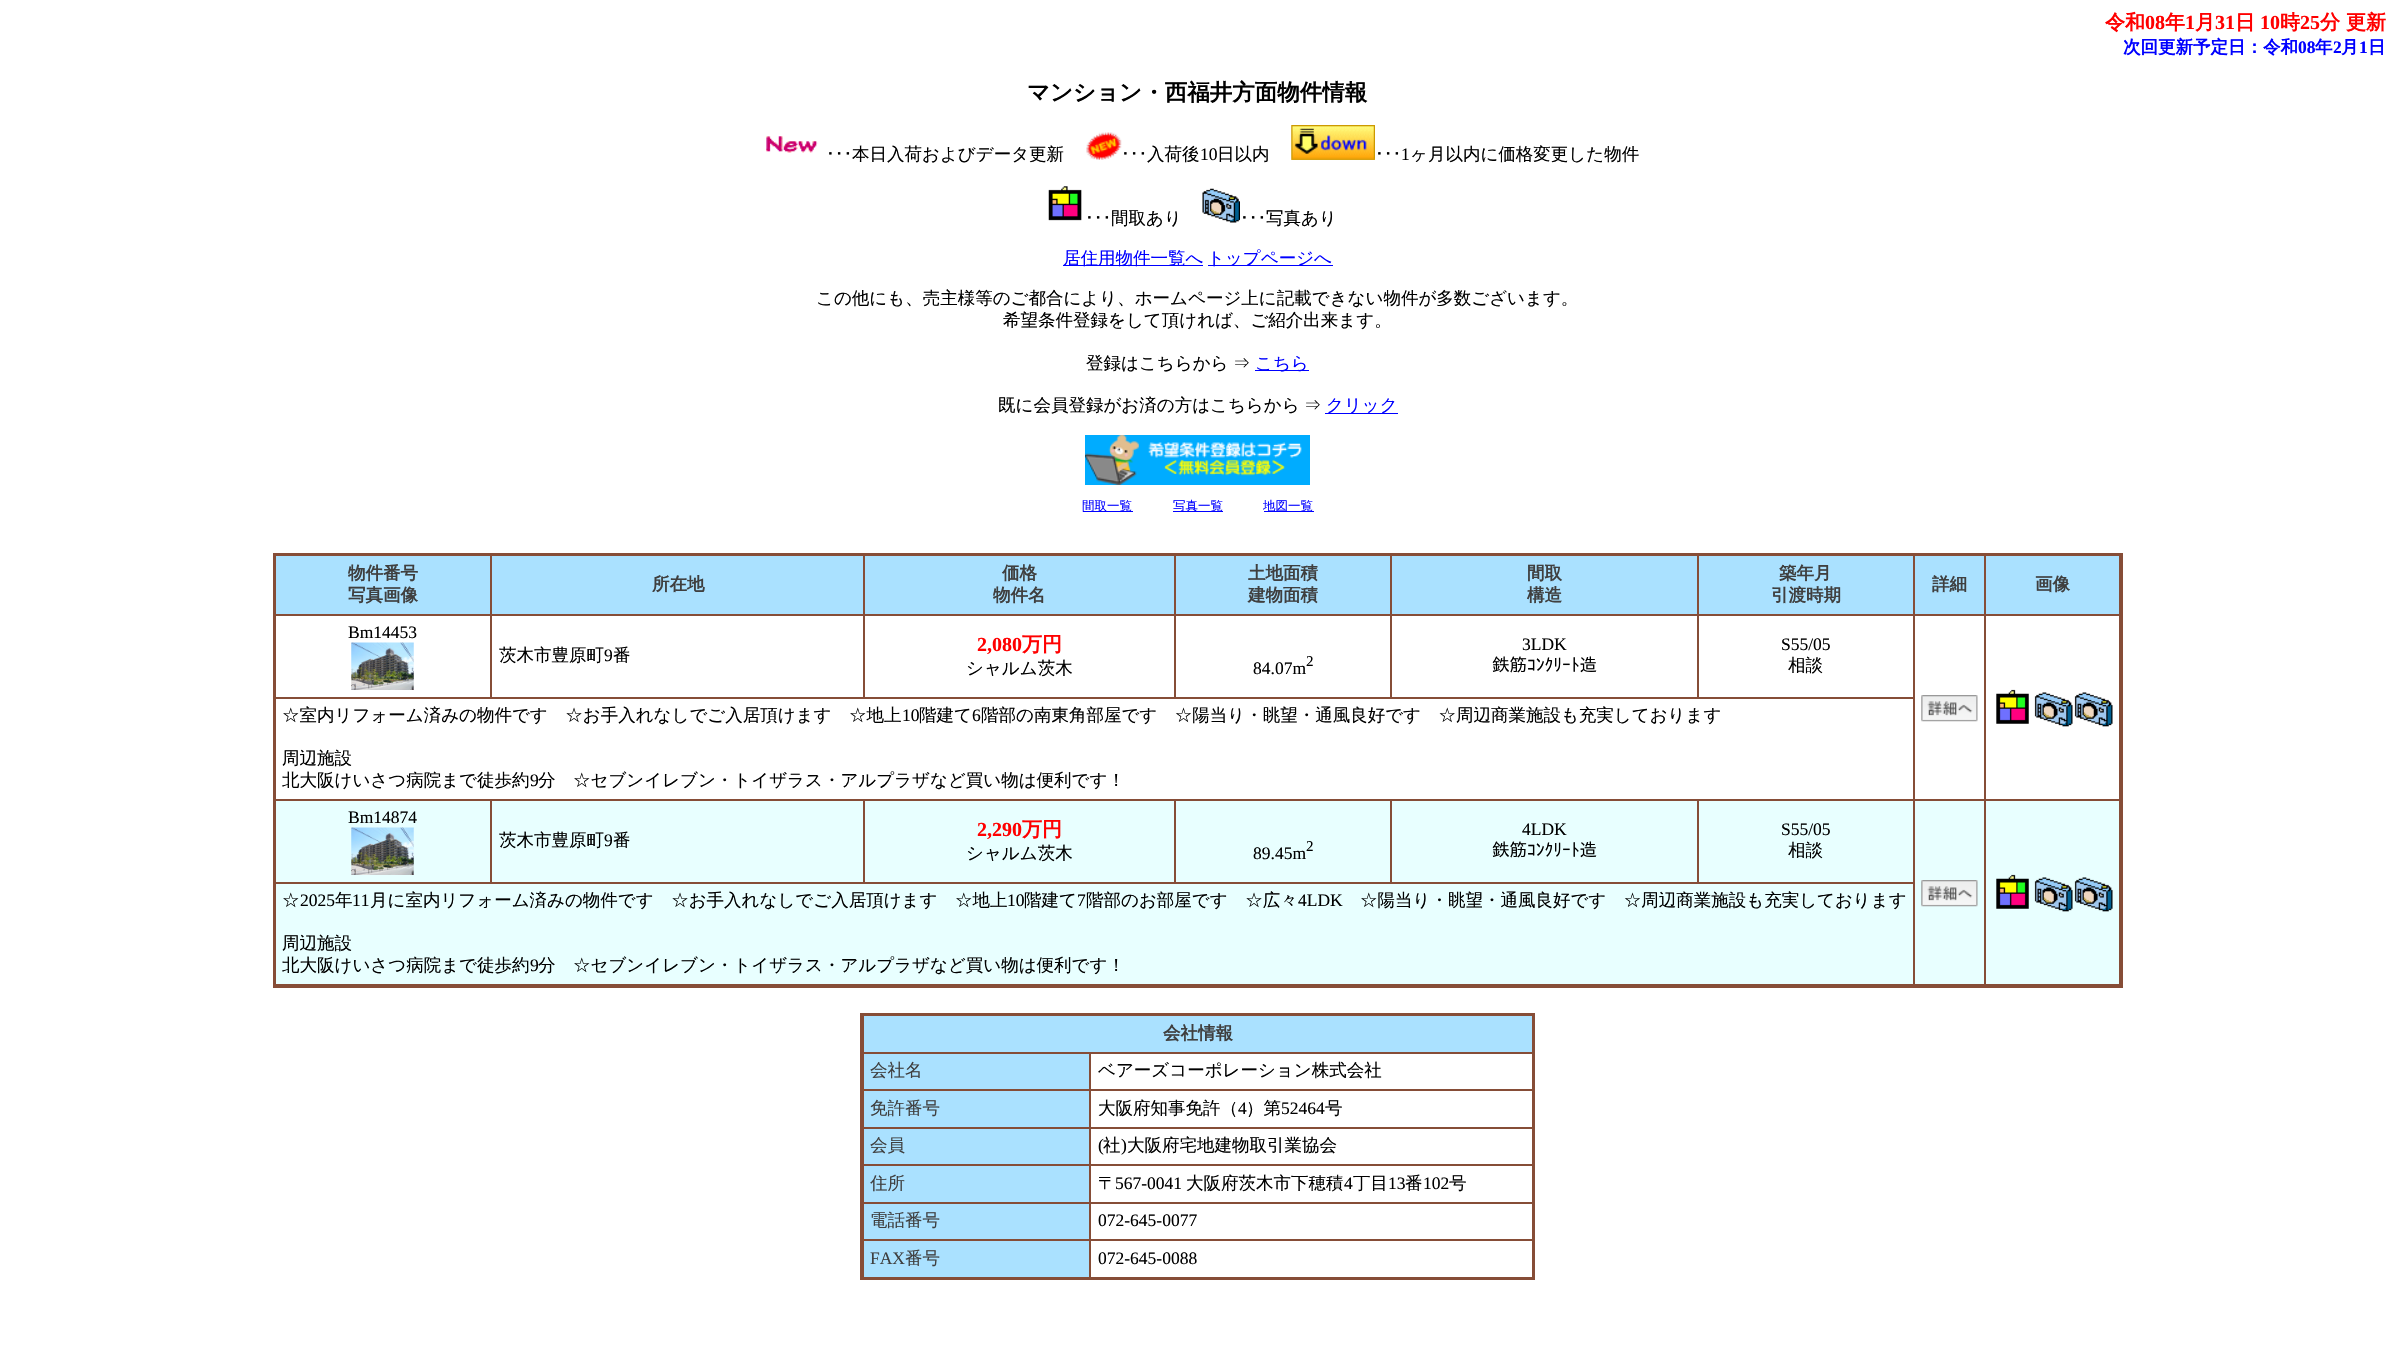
void draw(SkCanvas* canvas) {
	SkPaint fill;
	fill.setAntiAlias(true);
	auto makeFont = [&](const char* family, int weight, float size, bool italic = false) {
		SkFontStyle style(weight, SkFontStyle::kNormal_Width,
			italic ? SkFontStyle::kItalic_Slant : SkFontStyle::kUpright_Slant);
		SkFont result(fontMgr->matchFamilyStyle(family, style), size);
		result.setSubpixel(true);
		return result;
	};
	auto text = [&](const char* s, float x, float y, const SkFont& font) {
		canvas->drawString(s, x, y, font, fill);
	};
	auto spacedText = [&](const char* s, float x, float y, const SkFont& font, const SkPaint& ink, float letter, float word) {
		std::vector<SkGlyphID> glyphs(font.countText(s, strlen(s), SkTextEncoding::kUTF8));
		std::vector<float> xs(glyphs.size());
		font.textToGlyphs(s, strlen(s), SkTextEncoding::kUTF8, glyphs);
		font.getXPos(glyphs, xs, x);
		float extra = 0;
		for (size_t i = 0; i < glyphs.size(); i++) {
			xs[i] += extra;
			extra += letter + word * (glyphs[i] == font.unicharToGlyph(' '));
		}
		canvas->drawTextBlob(SkTextBlob::MakeFromPosHGlyphs(glyphs, xs, y, font), 0, 0, ink);
	};
	auto box = [&](float l, float t, float r, float b) {
		canvas->drawRect(SkRect::MakeLTRB(l, t, r, b), fill);
	};
	auto picture = [&](const char* path, float l, float t, float r, float b) {
		auto image = SkImages::DeferredFromEncodedData(SkData::MakeFromFileName(path));
		canvas->drawImageRect(image, SkRect::MakeLTRB(l, t, r, b), SkSamplingOptions());
	};
	canvas->clear(0xFFFFFFFF);
	picture("image0.png", 766, 136, 818, 153);
	picture("image1.png", 1086, 132, 1122, 160);
	picture("image2.png", 1291, 125, 1375, 160);
	picture("image3.png", 1048, 186, 1082, 221);
	picture("image4.png", 1202, 188, 1240, 223);
	fill.setColor(0xFF0000FF);
	box(1063, 265, 1203, 266);
	box(1208, 265, 1333, 266);
	box(1255, 370, 1309, 371);
	box(1325, 413, 1398, 414);
	picture("image5.png", 1085, 435, 1310, 485);
	box(1083, 511, 1133, 512);
	box(1173, 511, 1223, 512);
	box(1264, 511, 1314, 512);
	fill.setStyle(SkPaint::kStroke_Style);
	fill.setStrokeWidth(3);
	fill.setColor(0xFF864D37);
	canvas->drawRect(SkRect::MakeLTRB(274.5f, 554.5f, 2121.5f, 986.5f), fill);
	fill.setStyle(SkPaint::kFill_Style);
	fill.setColor(0xFFAAE1FF);
	canvas->drawRect(SkRect::MakeLTRB(275.5f, 555.5f, 490.5f, 614.5f), fill);
	fill.setStyle(SkPaint::kStroke_Style);
	fill.setStrokeWidth(1);
	fill.setColor(0xFF864D37);
	canvas->drawRect(SkRect::MakeLTRB(275.5f, 555.5f, 490.5f, 614.5f), fill);
	fill.setStyle(SkPaint::kFill_Style);
	fill.setColor(0xFFAAE1FF);
	canvas->drawRect(SkRect::MakeLTRB(491.5f, 555.5f, 863.5f, 614.5f), fill);
	fill.setStyle(SkPaint::kStroke_Style);
	fill.setColor(0xFF864D37);
	canvas->drawRect(SkRect::MakeLTRB(491.5f, 555.5f, 863.5f, 614.5f), fill);
	fill.setStyle(SkPaint::kFill_Style);
	fill.setColor(0xFFAAE1FF);
	canvas->drawRect(SkRect::MakeLTRB(864.5f, 555.5f, 1174.5f, 614.5f), fill);
	fill.setStyle(SkPaint::kStroke_Style);
	fill.setColor(0xFF864D37);
	canvas->drawRect(SkRect::MakeLTRB(864.5f, 555.5f, 1174.5f, 614.5f), fill);
	fill.setStyle(SkPaint::kFill_Style);
	fill.setColor(0xFFAAE1FF);
	canvas->drawRect(SkRect::MakeLTRB(1175.5f, 555.5f, 1390.5f, 614.5f), fill);
	fill.setStyle(SkPaint::kStroke_Style);
	fill.setColor(0xFF864D37);
	canvas->drawRect(SkRect::MakeLTRB(1175.5f, 555.5f, 1390.5f, 614.5f), fill);
	fill.setStyle(SkPaint::kFill_Style);
	fill.setColor(0xFFAAE1FF);
	canvas->drawRect(SkRect::MakeLTRB(1391.5f, 555.5f, 1697.5f, 614.5f), fill);
	fill.setStyle(SkPaint::kStroke_Style);
	fill.setColor(0xFF864D37);
	canvas->drawRect(SkRect::MakeLTRB(1391.5f, 555.5f, 1697.5f, 614.5f), fill);
	fill.setStyle(SkPaint::kFill_Style);
	fill.setColor(0xFFAAE1FF);
	canvas->drawRect(SkRect::MakeLTRB(1698.5f, 555.5f, 1913.5f, 614.5f), fill);
	fill.setStyle(SkPaint::kStroke_Style);
	fill.setColor(0xFF864D37);
	canvas->drawRect(SkRect::MakeLTRB(1698.5f, 555.5f, 1913.5f, 614.5f), fill);
	fill.setStyle(SkPaint::kFill_Style);
	fill.setColor(0xFFAAE1FF);
	canvas->drawRect(SkRect::MakeLTRB(1914.5f, 555.5f, 1984.5f, 614.5f), fill);
	fill.setStyle(SkPaint::kStroke_Style);
	fill.setColor(0xFF864D37);
	canvas->drawRect(SkRect::MakeLTRB(1914.5f, 555.5f, 1984.5f, 614.5f), fill);
	fill.setStyle(SkPaint::kFill_Style);
	fill.setColor(0xFFAAE1FF);
	canvas->drawRect(SkRect::MakeLTRB(1985.5f, 555.5f, 2119.5f, 614.5f), fill);
	fill.setStyle(SkPaint::kStroke_Style);
	fill.setColor(0xFF864D37);
	canvas->drawRect(SkRect::MakeLTRB(1985.5f, 555.5f, 2119.5f, 614.5f), fill);
	canvas->drawRect(SkRect::MakeLTRB(275.5f, 615.5f, 490.5f, 697.5f), fill);
	picture("image6.png", 351, 642, 414, 690);
	canvas->drawRect(SkRect::MakeLTRB(1914.5f, 615.5f, 1984.5f, 799.5f), fill);
	picture("image7.png", 1921, 695, 1978, 722);
	canvas->drawRect(SkRect::MakeLTRB(1985.5f, 615.5f, 2119.5f, 799.5f), fill);
	picture("image8.png", 1996, 689, 2029, 724);
	picture("image9.png", 2034, 692, 2073, 727);
	picture("image10.png", 2074, 692, 2113, 727);
	canvas->drawRect(SkRect::MakeLTRB(491.5f, 615.5f, 863.5f, 697.5f), fill);
	canvas->drawRect(SkRect::MakeLTRB(864.5f, 615.5f, 1174.5f, 697.5f), fill);
	canvas->drawRect(SkRect::MakeLTRB(1175.5f, 615.5f, 1390.5f, 697.5f), fill);
	canvas->drawRect(SkRect::MakeLTRB(1391.5f, 615.5f, 1697.5f, 697.5f), fill);
	canvas->drawRect(SkRect::MakeLTRB(1698.5f, 615.5f, 1913.5f, 697.5f), fill);
	canvas->drawRect(SkRect::MakeLTRB(275.5f, 698.5f, 1913.5f, 799.5f), fill);
	fill.setStyle(SkPaint::kFill_Style);
	fill.setColor(0xFFE8FFFF);
	canvas->drawRect(SkRect::MakeLTRB(275.5f, 800.5f, 490.5f, 882.5f), fill);
	fill.setStyle(SkPaint::kStroke_Style);
	fill.setColor(0xFF864D37);
	canvas->drawRect(SkRect::MakeLTRB(275.5f, 800.5f, 490.5f, 882.5f), fill);
	picture("image11.png", 351, 827, 414, 875);
	fill.setStyle(SkPaint::kFill_Style);
	fill.setColor(0xFFE8FFFF);
	canvas->drawRect(SkRect::MakeLTRB(1914.5f, 800.5f, 1984.5f, 984.5f), fill);
	fill.setStyle(SkPaint::kStroke_Style);
	fill.setColor(0xFF864D37);
	canvas->drawRect(SkRect::MakeLTRB(1914.5f, 800.5f, 1984.5f, 984.5f), fill);
	picture("image12.png", 1921, 880, 1978, 907);
	fill.setStyle(SkPaint::kFill_Style);
	fill.setColor(0xFFE8FFFF);
	canvas->drawRect(SkRect::MakeLTRB(1985.5f, 800.5f, 2119.5f, 984.5f), fill);
	fill.setStyle(SkPaint::kStroke_Style);
	fill.setColor(0xFF864D37);
	canvas->drawRect(SkRect::MakeLTRB(1985.5f, 800.5f, 2119.5f, 984.5f), fill);
	picture("image13.png", 1996, 874, 2029, 909);
	picture("image14.png", 2034, 877, 2073, 912);
	picture("image15.png", 2074, 877, 2113, 912);
	fill.setStyle(SkPaint::kFill_Style);
	fill.setColor(0xFFE8FFFF);
	canvas->drawRect(SkRect::MakeLTRB(491.5f, 800.5f, 863.5f, 882.5f), fill);
	fill.setStyle(SkPaint::kStroke_Style);
	fill.setColor(0xFF864D37);
	canvas->drawRect(SkRect::MakeLTRB(491.5f, 800.5f, 863.5f, 882.5f), fill);
	fill.setStyle(SkPaint::kFill_Style);
	fill.setColor(0xFFE8FFFF);
	canvas->drawRect(SkRect::MakeLTRB(864.5f, 800.5f, 1174.5f, 882.5f), fill);
	fill.setStyle(SkPaint::kStroke_Style);
	fill.setColor(0xFF864D37);
	canvas->drawRect(SkRect::MakeLTRB(864.5f, 800.5f, 1174.5f, 882.5f), fill);
	fill.setStyle(SkPaint::kFill_Style);
	fill.setColor(0xFFE8FFFF);
	canvas->drawRect(SkRect::MakeLTRB(1175.5f, 800.5f, 1390.5f, 882.5f), fill);
	fill.setStyle(SkPaint::kStroke_Style);
	fill.setColor(0xFF864D37);
	canvas->drawRect(SkRect::MakeLTRB(1175.5f, 800.5f, 1390.5f, 882.5f), fill);
	fill.setStyle(SkPaint::kFill_Style);
	fill.setColor(0xFFE8FFFF);
	canvas->drawRect(SkRect::MakeLTRB(1391.5f, 800.5f, 1697.5f, 882.5f), fill);
	fill.setStyle(SkPaint::kStroke_Style);
	fill.setColor(0xFF864D37);
	canvas->drawRect(SkRect::MakeLTRB(1391.5f, 800.5f, 1697.5f, 882.5f), fill);
	fill.setStyle(SkPaint::kFill_Style);
	fill.setColor(0xFFE8FFFF);
	canvas->drawRect(SkRect::MakeLTRB(1698.5f, 800.5f, 1913.5f, 882.5f), fill);
	fill.setStyle(SkPaint::kStroke_Style);
	fill.setColor(0xFF864D37);
	canvas->drawRect(SkRect::MakeLTRB(1698.5f, 800.5f, 1913.5f, 882.5f), fill);
	fill.setStyle(SkPaint::kFill_Style);
	fill.setColor(0xFFE8FFFF);
	canvas->drawRect(SkRect::MakeLTRB(275.5f, 883.5f, 1913.5f, 984.5f), fill);
	fill.setStyle(SkPaint::kStroke_Style);
	fill.setColor(0xFF864D37);
	canvas->drawRect(SkRect::MakeLTRB(275.5f, 883.5f, 1913.5f, 984.5f), fill);
	fill.setStrokeWidth(3);
	canvas->drawRect(SkRect::MakeLTRB(861.5f, 1014.5f, 1533.5f, 1278.5f), fill);
	fill.setStyle(SkPaint::kFill_Style);
	fill.setColor(0xFFAAE1FF);
	canvas->drawRect(SkRect::MakeLTRB(863.5f, 1015.5f, 1532.5f, 1052.5f), fill);
	fill.setStyle(SkPaint::kStroke_Style);
	fill.setStrokeWidth(1);
	fill.setColor(0xFF864D37);
	canvas->drawRect(SkRect::MakeLTRB(863.5f, 1015.5f, 1532.5f, 1052.5f), fill);
	fill.setStyle(SkPaint::kFill_Style);
	fill.setColor(0xFFAAE1FF);
	canvas->drawRect(SkRect::MakeLTRB(863.5f, 1053.5f, 1089.5f, 1089.5f), fill);
	fill.setStyle(SkPaint::kStroke_Style);
	fill.setColor(0xFF864D37);
	canvas->drawRect(SkRect::MakeLTRB(863.5f, 1053.5f, 1089.5f, 1089.5f), fill);
	canvas->drawRect(SkRect::MakeLTRB(1090.5f, 1053.5f, 1532.5f, 1089.5f), fill);
	fill.setStyle(SkPaint::kFill_Style);
	fill.setColor(0xFFAAE1FF);
	canvas->drawRect(SkRect::MakeLTRB(863.5f, 1090.5f, 1089.5f, 1127.5f), fill);
	fill.setStyle(SkPaint::kStroke_Style);
	fill.setColor(0xFF864D37);
	canvas->drawRect(SkRect::MakeLTRB(863.5f, 1090.5f, 1089.5f, 1127.5f), fill);
	canvas->drawRect(SkRect::MakeLTRB(1090.5f, 1090.5f, 1532.5f, 1127.5f), fill);
	fill.setStyle(SkPaint::kFill_Style);
	fill.setColor(0xFFAAE1FF);
	canvas->drawRect(SkRect::MakeLTRB(863.5f, 1128.5f, 1089.5f, 1164.5f), fill);
	fill.setStyle(SkPaint::kStroke_Style);
	fill.setColor(0xFF864D37);
	canvas->drawRect(SkRect::MakeLTRB(863.5f, 1128.5f, 1089.5f, 1164.5f), fill);
	canvas->drawRect(SkRect::MakeLTRB(1090.5f, 1128.5f, 1532.5f, 1164.5f), fill);
	fill.setStyle(SkPaint::kFill_Style);
	fill.setColor(0xFFAAE1FF);
	canvas->drawRect(SkRect::MakeLTRB(863.5f, 1165.5f, 1089.5f, 1202.5f), fill);
	fill.setStyle(SkPaint::kStroke_Style);
	fill.setColor(0xFF864D37);
	canvas->drawRect(SkRect::MakeLTRB(863.5f, 1165.5f, 1089.5f, 1202.5f), fill);
	canvas->drawRect(SkRect::MakeLTRB(1090.5f, 1165.5f, 1532.5f, 1202.5f), fill);
	fill.setStyle(SkPaint::kFill_Style);
	fill.setColor(0xFFAAE1FF);
	canvas->drawRect(SkRect::MakeLTRB(863.5f, 1203.5f, 1089.5f, 1239.5f), fill);
	fill.setStyle(SkPaint::kStroke_Style);
	fill.setColor(0xFF864D37);
	canvas->drawRect(SkRect::MakeLTRB(863.5f, 1203.5f, 1089.5f, 1239.5f), fill);
	canvas->drawRect(SkRect::MakeLTRB(1090.5f, 1203.5f, 1532.5f, 1239.5f), fill);
	fill.setStyle(SkPaint::kFill_Style);
	fill.setColor(0xFFAAE1FF);
	canvas->drawRect(SkRect::MakeLTRB(863.5f, 1240.5f, 1089.5f, 1277.5f), fill);
	fill.setStyle(SkPaint::kStroke_Style);
	fill.setColor(0xFF864D37);
	canvas->drawRect(SkRect::MakeLTRB(863.5f, 1240.5f, 1089.5f, 1277.5f), fill);
	canvas->drawRect(SkRect::MakeLTRB(1090.5f, 1240.5f, 1532.5f, 1277.5f), fill);
	auto font1 = makeFont("WenQuanYi Zen Hei", 700, 20);
	fill.setStyle(SkPaint::kFill_Style);
	fill.setColor(0xFFFF0000);
	text("令和", 2105, 29, font1);
	auto font2 = makeFont("Liberation Serif", 700, 20);
	text("08", 2145, 29, font2);
	text("年", 2165, 29, font1);
	text("1", 2185, 29, font2);
	text("月", 2195, 29, font1);
	text("31", 2215, 29, font2);
	text("日", 2235, 29, font1);
	text("10", 2260, 29, font2);
	text("時", 2280, 29, font1);
	text("25", 2300, 29, font2);
	text("分 更新", 2320, 29, font1);
	auto font3 = makeFont("WenQuanYi Zen Hei", 700, 17.5f);
	fill.setColor(0xFF0000FF);
	text("次回更新予定日：令和", 2123, 53, font3);
	auto font4 = makeFont("Liberation Serif", 700, 17.5f);
	text("08", 2298, 53, font4);
	text("年", 2315, 53, font3);
	text("2", 2333, 53, font4);
	text("月", 2341, 53, font3);
	text("1", 2359, 53, font4);
	text("日", 2368, 53, font3);
	auto font5 = makeFont("WenQuanYi Zen Hei", 700, 22.5f);
	fill.setColor(0xFF000000);
	text("マンション・西福井方面物件情報", 1027, 100, font5);
	auto font6 = makeFont("IPAPGothic", 400, 17.5f);
	text("･･･", 826, 160, font6);
	auto font7 = makeFont("WenQuanYi Zen Hei", 500, 17.5f);
	text("本日入荷およびデータ更新", 852, 160, font7);
	text("･･･", 1121, 160, font6);
	text("入荷後", 1147, 160, font7);
	auto font8 = makeFont("Liberation Serif", 400, 17.5f);
	text("10", 1200, 160, font8);
	text("日以内", 1217, 160, font7);
	text("･･･", 1375, 160, font6);
	text("1", 1401, 160, font8);
	text("ヶ月以内に価格変更した物件", 1410, 160, font7);
	text("･･･", 1085, 224, font6);
	text("間取あり", 1111, 224, font7);
	text("･･･", 1240, 224, font6);
	text("写真あり", 1266, 224, font7);
	fill.setColor(0xFF0000FF);
	text("居住用物件一覧へ", 1063, 264, font7);
	text("トップページへ", 1207, 264, font7);
	fill.setColor(0xFF000000);
	text("この他にも、売主様等のご都合により、ホームページ上に記載できない物件が多数ございます。", 816, 304, font7);
	text("希望条件登録をして頂ければ、ご紹介出来ます。", 1003, 326, font7);
	spacedText("登録はこちらから ⇒", 1086, 369, font7, fill, 0, -1);
	fill.setColor(0xFF0000FF);
	text("こちら", 1255, 369, font7);
	fill.setColor(0xFF000000);
	spacedText("既に会員登録がお済の方はこちらから ⇒", 998, 411, font7, fill, 0, -1);
	fill.setColor(0xFF0000FF);
	text("クリック", 1326, 411, font7);
	auto font9 = makeFont("WenQuanYi Zen Hei", 500, 12.5f);
	text("間取一覧", 1082, 510, font9);
	text("写真一覧", 1173, 510, font9);
	text("地図一覧", 1263, 510, font9);
	fill.setColor(0xFF3F3F3F);
	text("物件番号", 348, 579, font3);
	text("写真画像", 348, 601, font3);
	text("所在地", 652, 590, font3);
	text("価格", 1002, 579, font3);
	text("物件名", 993, 601, font3);
	text("土地面積", 1248, 579, font3);
	text("建物面積", 1248, 601, font3);
	text("間取", 1527, 579, font3);
	text("構造", 1527, 601, font3);
	text("築年月", 1779, 579, font3);
	text("引渡時期", 1771, 601, font3);
	text("詳細", 1932, 590, font3);
	text("画像", 2035, 590, font3);
	fill.setColor(0xFF000000);
	text("Bm14453", 348, 638, font8);
	text("茨木市豊原町", 499, 661, font7);
	text("9", 604, 661, font8);
	text("番", 613, 661, font7);
	fill.setColor(0xFFFF0000);
	text("2,080", 977, 651, font2);
	text("万円", 1022, 651, font1);
	fill.setColor(0xFF000000);
	text("シャルム茨木", 966, 674, font7);
	auto font10 = makeFont("Liberation Serif", 400, 15);
	text("2", 1306, 666, font10);
	text("84.07m", 1253, 674, font8);
	text("3LDK", 1522, 650, font8);
	text("鉄筋ｺﾝｸﾘｰﾄ造", 1492, 671, font6);
	text("S55/05", 1781, 650, font8);
	text("相談", 1788, 671, font7);
	text("☆室内リフォーム済みの物件です　☆お手入れなしでご入居頂けます　☆地上", 282, 721, font7);
	text("10", 902, 721, font8);
	text("階建て", 919, 721, font7);
	text("6", 972, 721, font8);
	text("階部の南東角部屋です　☆陽当り・眺望・通風良好です　☆周辺商業施設も充実しております", 981, 721, font7);
	text("周辺施設", 282, 764, font7);
	text("北大阪けいさつ病院まで徒歩約", 282, 786, font7);
	text("9", 530, 786, font8);
	text("分　☆セブンイレブン・トイザラス・アルプラザなど買い物は便利です！", 538, 786, font7);
	text("Bm14874", 348, 823, font8);
	text("茨木市豊原町", 499, 846, font7);
	text("9", 604, 846, font8);
	text("番", 613, 846, font7);
	fill.setColor(0xFFFF0000);
	text("2,290", 977, 836, font2);
	text("万円", 1022, 836, font1);
	fill.setColor(0xFF000000);
	text("シャルム茨木", 966, 859, font7);
	text("2", 1306, 851, font10);
	text("89.45m", 1253, 859, font8);
	text("4LDK", 1522, 835, font8);
	text("鉄筋ｺﾝｸﾘｰﾄ造", 1492, 856, font6);
	text("S55/05", 1781, 835, font8);
	text("相談", 1788, 856, font7);
	text("☆", 282, 906, font7);
	text("2025", 300, 906, font8);
	text("年", 335, 906, font7);
	text("11", 352, 906, font8);
	text("月に室内リフォーム済みの物件です　☆お手入れなしでご入居頂けます　☆地上", 370, 906, font7);
	text("10", 1007, 906, font8);
	text("階建て", 1024, 906, font7);
	text("7", 1077, 906, font8);
	text("階部のお部屋です　☆広々", 1086, 906, font7);
	text("4LDK", 1298, 906, font8);
	text("☆陽当り・眺望・通風良好です　☆周辺商業施設も充実しております", 1360, 906, font7);
	text("周辺施設", 282, 949, font7);
	text("北大阪けいさつ病院まで徒歩約", 282, 971, font7);
	text("9", 530, 971, font8);
	text("分　☆セブンイレブン・トイザラス・アルプラザなど買い物は便利です！", 538, 971, font7);
	fill.setColor(0xFF3F3F3F);
	text("会社情報", 1163, 1039, font3);
	text("会社名", 870, 1076, font7);
	fill.setColor(0xFF000000);
	text("ベアーズコーポレーション株式会社", 1098, 1076, font7);
	fill.setColor(0xFF3F3F3F);
	text("免許番号", 870, 1114, font7);
	fill.setColor(0xFF000000);
	text("大阪府知事免許（", 1098, 1114, font7);
	text("4", 1238, 1114, font8);
	text("）第", 1246, 1114, font7);
	text("52464", 1281, 1114, font8);
	text("号", 1325, 1114, font7);
	fill.setColor(0xFF3F3F3F);
	text("会員", 870, 1151, font7);
	fill.setColor(0xFF000000);
	text("(", 1098, 1151, font8);
	text("社", 1103, 1151, font7);
	text(")", 1121, 1151, font8);
	text("大阪府宅地建物取引業協会", 1127, 1151, font7);
	fill.setColor(0xFF3F3F3F);
	text("住所", 870, 1189, font7);
	fill.setColor(0xFF000000);
	text("〒", 1098, 1189, font7);
	text("567-0041", 1115, 1189, font8);
	text("大阪府茨木市下穂積", 1186, 1189, font7);
	text("4", 1344, 1189, font8);
	text("丁目", 1353, 1189, font7);
	text("13", 1388, 1189, font8);
	text("番", 1405, 1189, font7);
	text("102", 1423, 1189, font8);
	text("号", 1449, 1189, font7);
	fill.setColor(0xFF3F3F3F);
	text("電話番号", 870, 1226, font7);
	fill.setColor(0xFF000000);
	text("072-645-0077", 1098, 1226, font8);
	fill.setColor(0xFF3F3F3F);
	text("FAX", 870, 1264, font8);
	text("番号", 905, 1264, font7);
	fill.setColor(0xFF000000);
	text("072-645-0088", 1098, 1264, font8);
}
